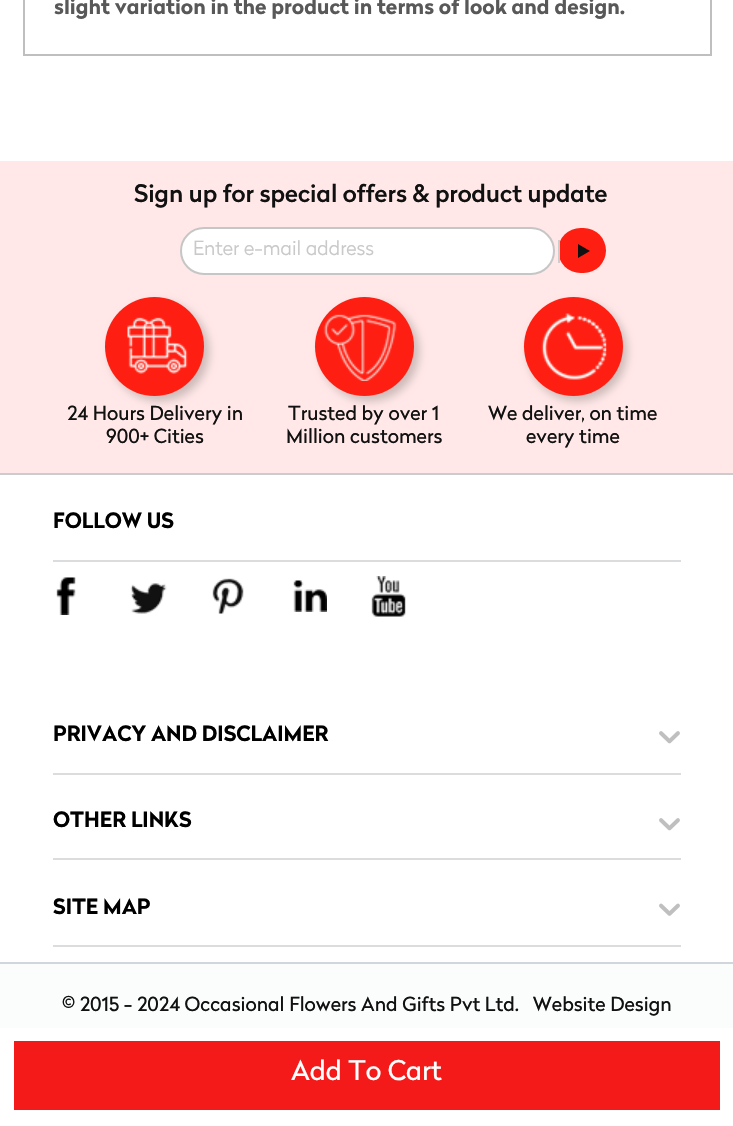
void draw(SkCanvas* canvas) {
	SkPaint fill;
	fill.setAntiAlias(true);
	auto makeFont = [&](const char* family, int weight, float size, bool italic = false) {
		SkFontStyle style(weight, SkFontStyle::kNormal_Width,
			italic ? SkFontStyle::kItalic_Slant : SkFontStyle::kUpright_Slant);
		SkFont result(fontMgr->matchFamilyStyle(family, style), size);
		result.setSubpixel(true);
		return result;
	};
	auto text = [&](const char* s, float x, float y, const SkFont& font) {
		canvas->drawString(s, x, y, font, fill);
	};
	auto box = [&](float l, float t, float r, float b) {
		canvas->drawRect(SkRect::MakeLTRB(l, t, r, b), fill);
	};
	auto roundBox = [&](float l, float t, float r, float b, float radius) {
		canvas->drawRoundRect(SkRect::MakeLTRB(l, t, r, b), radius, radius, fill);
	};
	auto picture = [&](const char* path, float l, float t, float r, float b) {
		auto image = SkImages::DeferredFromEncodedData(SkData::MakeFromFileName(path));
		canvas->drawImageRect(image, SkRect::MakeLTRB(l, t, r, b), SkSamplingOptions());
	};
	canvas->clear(0xFFFFFFFF);
	fill.setColor(0xFFBFBFBF);
	box(710, 0, 712, 56);
	box(23, 54, 711, 56);
	box(23, 0, 25, 56);
	fill.setColor(0xFFF41A19);
	box(14, 1041, 720, 1110);
	fill.setColor(0xFFFFE8E7);
	box(0, 161, 733, 473);
	fill.setColor(0xFFFFFFFF);
	canvas->drawRoundRect(SkRect::MakeLTRB(181, 228, 554, 274), 23, 23, fill);
	fill.setStyle(SkPaint::kStroke_Style);
	fill.setStrokeWidth(2);
	fill.setColor(0xFFC6C6C6);
	canvas->drawRoundRect(SkRect::MakeLTRB(181, 228, 554, 274), 23, 23, fill);
	fill.setStyle(SkPaint::kFill_Style);
	fill.setColor(0xFFFF1F12);
	roundBox(558, 228, 606, 273, 22.5f);
	fill.setColor(0xFFCDCDCD);
	box(558, 240, 560, 263);
	fill.setColor(0xFF111111);
	canvas->drawPath(SkPathBuilder().moveTo(578, 244).lineTo(590, 251).lineTo(578, 258).close().detach(), fill);
	fill.setColor(0x33000000);
	fill.setMaskFilter(SkMaskFilter::MakeBlur(kNormal_SkBlurStyle, 4));
	canvas->drawRoundRect(SkRect::MakeLTRB(110, 302, 209, 401), 49.5f, 49.5f, fill);
	fill.setMaskFilter(nullptr);
	fill.setColor(0xFFFF1F12);
	canvas->drawCircle(154.5f, 346.5f, 49.5f, fill);
	picture("image0.png", 127, 317, 188, 374);
	fill.setColor(0x33000000);
	fill.setMaskFilter(SkMaskFilter::MakeBlur(kNormal_SkBlurStyle, 4));
	canvas->drawRoundRect(SkRect::MakeLTRB(320, 302, 419, 401), 49.5f, 49.5f, fill);
	fill.setMaskFilter(nullptr);
	fill.setColor(0xFFFF1F12);
	canvas->drawCircle(364.5f, 346.5f, 49.5f, fill);
	picture("image1.png", 323, 314, 397, 381);
	fill.setColor(0x33000000);
	fill.setMaskFilter(SkMaskFilter::MakeBlur(kNormal_SkBlurStyle, 4));
	canvas->drawRoundRect(SkRect::MakeLTRB(528, 302, 627, 401), 49.5f, 49.5f, fill);
	fill.setMaskFilter(nullptr);
	fill.setColor(0xFFFF1F12);
	canvas->drawCircle(573.5f, 346.5f, 49.5f, fill);
	picture("image2.png", 541, 313, 607, 380);
	fill.setColor(0xFFCCCCCC);
	box(0, 473, 733, 475);
	fill.setColor(0xFFDADCDE);
	box(53, 560, 681, 562);
	picture("image3.png", 56, 577, 76, 615);
	picture("image4.png", 130, 583, 167, 614);
	picture("image5.png", 212, 578, 244, 614);
	picture("image6.png", 293, 580, 327, 612);
	picture("image7.png", 371, 576, 406, 617);
	box(53, 773, 681, 775);
	picture("image8.png", 659, 731, 680, 744);
	box(53, 858, 681, 860);
	picture("image8.png", 659, 818, 680, 831);
	box(53, 945, 681, 947);
	picture("image9.png", 659, 903, 680, 916);
	fill.setColor(0xFFFBFCFC);
	box(0, 964, 733, 1028);
	fill.setColor(0xFFD0D6DB);
	box(0, 962, 733, 964);
	auto font1 = makeFont("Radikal", 700, 21);
	fill.setColor(0xFF585858);
	text("slight variation in the product in terms of look and design.", 54, 14, font1);
	auto font2 = makeFont("Radikal", 400, 27);
	fill.setColor(0xFFFFFFFF);
	text("Add To Cart", 291, 1080, font2);
	auto font3 = makeFont("Radikal", 500, 24);
	fill.setColor(0xFF111111);
	text("Sign up for special offers & product update", 134, 202, font3);
	auto font4 = makeFont("Radikal", 300, 19.5f);
	fill.setColor(0xFFC9C9C9);
	text("Enter e-mail address", 193, 255, font4);
	auto font5 = makeFont("Radikal", 400, 19.5f);
	fill.setColor(0xFF111111);
	text("24 Hours Delivery in", 67, 420, font5);
	text("900+ Cities", 106, 443, font5);
	text("Trusted by over 1", 288, 420, font5);
	text("Million customers", 286, 443, font5);
	text("We deliver, on time", 488, 420, font5);
	text("every time", 526, 443, font5);
	fill.setColor(0xFF000000);
	text("FOLLOW US", 53, 528, font1);
	text("PRIVACY AND DISCLAIMER", 53, 741, font1);
	text("OTHER LINKS", 53, 827, font1);
	text("SITE MAP", 53, 914, font1);
	fill.setColor(0xFF111111);
	text("© 2015 - 2024 Occasional Flowers And Gifts Pvt Ltd.   Website Design", 62, 1011, font5);
}
